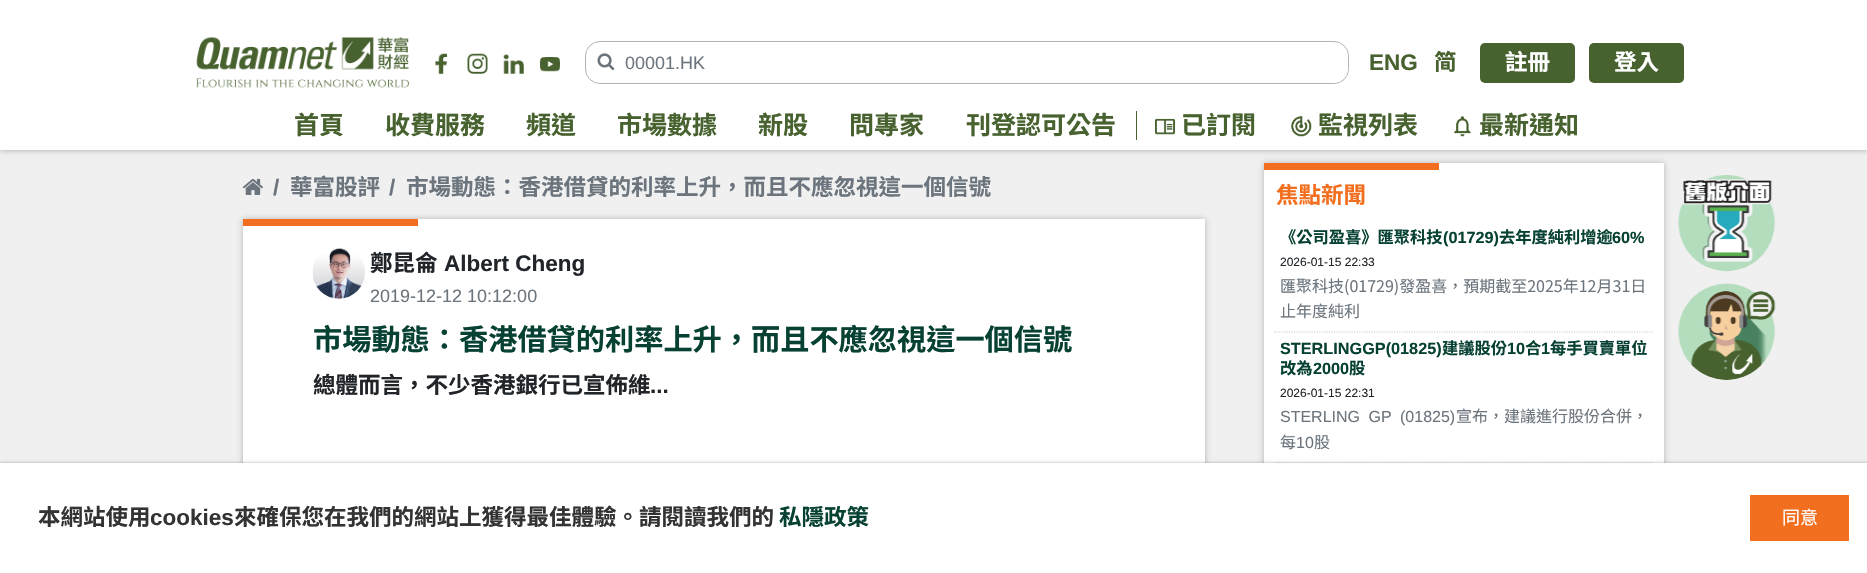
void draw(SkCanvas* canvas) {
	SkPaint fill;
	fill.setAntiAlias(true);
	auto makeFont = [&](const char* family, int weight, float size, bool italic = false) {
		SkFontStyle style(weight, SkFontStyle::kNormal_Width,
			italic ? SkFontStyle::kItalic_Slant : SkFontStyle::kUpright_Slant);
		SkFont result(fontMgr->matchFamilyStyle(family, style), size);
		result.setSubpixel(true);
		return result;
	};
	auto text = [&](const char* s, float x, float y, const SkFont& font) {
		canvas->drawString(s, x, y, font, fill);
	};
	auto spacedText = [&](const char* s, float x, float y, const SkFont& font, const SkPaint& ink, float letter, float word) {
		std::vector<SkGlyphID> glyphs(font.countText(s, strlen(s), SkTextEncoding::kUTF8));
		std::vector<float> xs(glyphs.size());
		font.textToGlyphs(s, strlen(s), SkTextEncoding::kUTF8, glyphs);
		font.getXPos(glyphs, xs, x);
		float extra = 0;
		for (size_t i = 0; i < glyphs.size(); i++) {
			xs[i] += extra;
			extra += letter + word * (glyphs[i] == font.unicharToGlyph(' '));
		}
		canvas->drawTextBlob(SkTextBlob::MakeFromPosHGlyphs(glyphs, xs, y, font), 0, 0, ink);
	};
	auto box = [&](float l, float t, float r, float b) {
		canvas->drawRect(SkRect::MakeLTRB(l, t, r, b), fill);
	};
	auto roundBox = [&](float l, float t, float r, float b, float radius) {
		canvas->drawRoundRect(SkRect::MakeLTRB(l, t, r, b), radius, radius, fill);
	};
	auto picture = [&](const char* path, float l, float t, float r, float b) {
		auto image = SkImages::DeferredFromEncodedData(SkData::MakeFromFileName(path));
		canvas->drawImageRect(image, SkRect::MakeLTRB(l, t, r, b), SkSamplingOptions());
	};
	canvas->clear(0xFFF0F0F0);
	fill.setColor(0x4D000000);
	fill.setMaskFilter(SkMaskFilter::MakeBlur(kNormal_SkBlurStyle, 3));
	canvas->drawRect(SkRect::MakeLTRB(0, 0, 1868, 150), fill);
	fill.setMaskFilter(nullptr);
	fill.setColor(0xFFFFFFFF);
	box(0, 0, 1867, 150);
	picture("image0.png", 196, 37, 409, 88);
	picture("image1.png", 435, 53, 448, 74);
	picture("image2.png", 467, 53, 488, 74);
	picture("image3.png", 503, 54, 524, 74);
	picture("image4.png", 540, 57, 560, 72);
	fill.setStyle(SkPaint::kStroke_Style);
	fill.setStrokeWidth(1);
	fill.setColor(0xFFB3B3B3);
	canvas->drawRoundRect(SkRect::MakeLTRB(585.5f, 41.5f, 1348.5f, 83.5f), 14.5f, 14.5f, fill);
	picture("image5.png", 597, 53, 615, 70);
	fill.setStyle(SkPaint::kFill_Style);
	fill.setColor(0xFFFFFFFF);
	roundBox(625, 43, 1348, 83, 15);
	fill.setColor(0xFF47612F);
	roundBox(1480, 43, 1575, 83, 5);
	roundBox(1589, 43, 1684, 83, 5);
	box(1136, 111, 1137, 140);
	picture("image6.png", 1155, 118, 1175, 135);
	picture("image7.png", 1291, 116, 1312, 137);
	picture("image8.png", 1454, 116, 1471, 137);
	picture("image9.png", 242, 178, 263, 195);
	fill.setColor(0x40000000);
	fill.setMaskFilter(SkMaskFilter::MakeBlur(kNormal_SkBlurStyle, 3));
	canvas->drawRect(SkRect::MakeLTRB(243, 219, 1205, 469), fill);
	fill.setMaskFilter(nullptr);
	fill.setColor(0xFFFFFFFF);
	box(243, 219, 1205, 463);
	fill.setColor(0xFFF36F20);
	box(243, 219, 418, 226);
	picture("image10.png", 312, 248, 365, 299);
	fill.setColor(0x40000000);
	fill.setMaskFilter(SkMaskFilter::MakeBlur(kNormal_SkBlurStyle, 3));
	canvas->drawRect(SkRect::MakeLTRB(1264, 163, 1664, 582), fill);
	fill.setMaskFilter(nullptr);
	fill.setColor(0xFFFFFFFF);
	box(1264, 163, 1664, 463);
	fill.setColor(0xFFF36F20);
	box(1264, 163, 1439, 170);
	fill.setStyle(SkPaint::kStroke_Style);
	fill.setStrokeWidth(1.2f);
	fill.setColor(0xFFCCCCCC);
	fill.setPathEffect(SkDashPathEffect::Make({{1.25f, 1.25f}}, 0));
	canvas->drawPath(SkPathBuilder().moveTo(1274, 332).lineTo(1654, 332).detach(), fill);
	fill.setPathEffect(nullptr);
	fill.setPathEffect(SkDashPathEffect::Make({{1.25f, 1.25f}}, 0));
	canvas->drawPath(SkPathBuilder().moveTo(1274, 463).lineTo(1654, 463).detach(), fill);
	fill.setPathEffect(nullptr);
	picture("image11.png", 1678, 175, 1776, 272);
	picture("image12.png", 1678, 283, 1776, 380);
	fill.setStyle(SkPaint::kFill_Style);
	fill.setColor(0x3D000000);
	fill.setMaskFilter(SkMaskFilter::MakeBlur(kNormal_SkBlurStyle, 1));
	canvas->drawRect(SkRect::MakeLTRB(0, 463, 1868, 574), fill);
	fill.setMaskFilter(nullptr);
	fill.setColor(0x1F000000);
	fill.setMaskFilter(SkMaskFilter::MakeBlur(kNormal_SkBlurStyle, 2));
	canvas->drawRect(SkRect::MakeLTRB(0, 463, 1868, 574), fill);
	fill.setMaskFilter(nullptr);
	fill.setColor(0xFFFFFFFF);
	box(0, 463, 1867, 573);
	fill.setColor(0xFFF36F20);
	box(1750, 495, 1849, 541);
	auto font1 = makeFont("Liberation Sans", 400, 18);
	fill.setColor(0xFF6C757D);
	text("00001.HK", 625, 69, font1);
	auto font2 = makeFont("Liberation Sans", 700, 22.5f);
	fill.setColor(0xFF47612F);
	text("ENG", 1369, 70, font2);
	auto font3 = makeFont("Noto Sans SC", 700, 22.5f);
	text("简", 1434, 70, font3);
	auto font4 = makeFont("Noto Sans TC", 700, 22.5f);
	fill.setColor(0xFFFFFFFF);
	text("註冊", 1505, 70, font4);
	text("登入", 1614, 70, font4);
	auto font5 = makeFont("Noto Sans TC", 700, 25);
	fill.setColor(0xFF47612F);
	text("首頁", 294, 134, font5);
	text("收費服務", 385, 134, font5);
	text("頻道", 526, 134, font5);
	text("市場數據", 617, 134, font5);
	text("新股", 758, 134, font5);
	text("問專家", 849, 134, font5);
	text("刊登認可公告", 966, 134, font5);
	text("已訂閱", 1181, 134, font5);
	text("監視列表", 1318, 134, font5);
	text("最新通知", 1479, 134, font5);
	fill.setColor(0xFF6C757D);
	text("/", 273, 195, font2);
	text("華富股評", 290, 195, font4);
	text("/", 389, 195, font2);
	text("市場動態：香港借貸的利率上升，而且不應忽視這一個信號", 406, 195, font4);
	fill.setColor(0xFF212529);
	text("鄭昆侖", 370, 271, font4);
	text("Albert Cheng", 444, 271, font2);
	fill.setColor(0xFF6C757D);
	text("2019-12-12 10:12:00", 370, 302, font1);
	auto font6 = makeFont("Noto Sans TC", 700, 29.2f);
	fill.setColor(0xFF074133);
	text("市場動態：香港借貸的利率上升，而且不應忽視這一個信號", 313, 350, font6);
	fill.setColor(0xFF212529);
	text("總體而言，不少香港銀行已宣佈維", 313, 393, font4);
	text("...", 650, 393, font2);
	fill.setColor(0xFFF36F20);
	text("焦點新聞", 1276, 203, font4);
	auto font7 = makeFont("Noto Sans TC", 700, 16.25f);
	fill.setColor(0xFF074133);
	text("《公司盈喜》匯聚科技", 1280, 243, font7);
	auto font8 = makeFont("Liberation Sans", 700, 16.25f);
	text("(01729)", 1443, 243, font8);
	text("去年度純利增逾", 1499, 243, font7);
	text("60%", 1612, 243, font8);
	auto font9 = makeFont("Liberation Sans", 400, 12);
	fill.setColor(0xFF212529);
	text("2026-01-15 22:33", 1280, 266, font9);
	auto font10 = makeFont("Noto Sans TC", 400, 16);
	fill.setColor(0xFF6C757D);
	text("匯聚科技(01729)發盈喜，預期截至2025年12月31日", 1280, 292, font10);
	text("止年度純利", 1280, 317, font10);
	fill.setColor(0xFF074133);
	text("STERLINGGP(01825)", 1280, 354, font8);
	text("建議股份", 1442, 354, font7);
	text("10", 1507, 354, font8);
	text("合", 1525, 354, font7);
	text("1", 1541, 354, font8);
	text("每手買賣單位", 1550, 354, font7);
	text("改為", 1280, 374, font7);
	text("2000", 1313, 374, font8);
	text("股", 1349, 374, font7);
	fill.setColor(0xFF212529);
	text("2026-01-15 22:31", 1280, 397, font9);
	auto font11 = makeFont("Liberation Sans", 400, 16);
	fill.setColor(0xFF6C757D);
	spacedText("STERLING GP (01825)", 1280, 422, font11, fill, 0, 4);
	text("宣布，建議進行股份合併，", 1456, 422, font10);
	text("每", 1280, 448, font10);
	text("10", 1296, 448, font11);
	text("股", 1314, 448, font10);
	fill.setColor(0xFF333333);
	text("本網站使用", 38, 525, font4);
	text("cookies", 150, 525, font2);
	text("來確保您在我們的網站上獲得最佳體驗。請閱讀我們的", 234, 525, font4);
	fill.setColor(0xFF074133);
	text("私隱政策", 779, 525, font4);
	auto font12 = makeFont("Noto Sans TC", 400, 18);
	fill.setColor(0xFFFFFFFF);
	text("同意", 1782, 524, font12);
}
